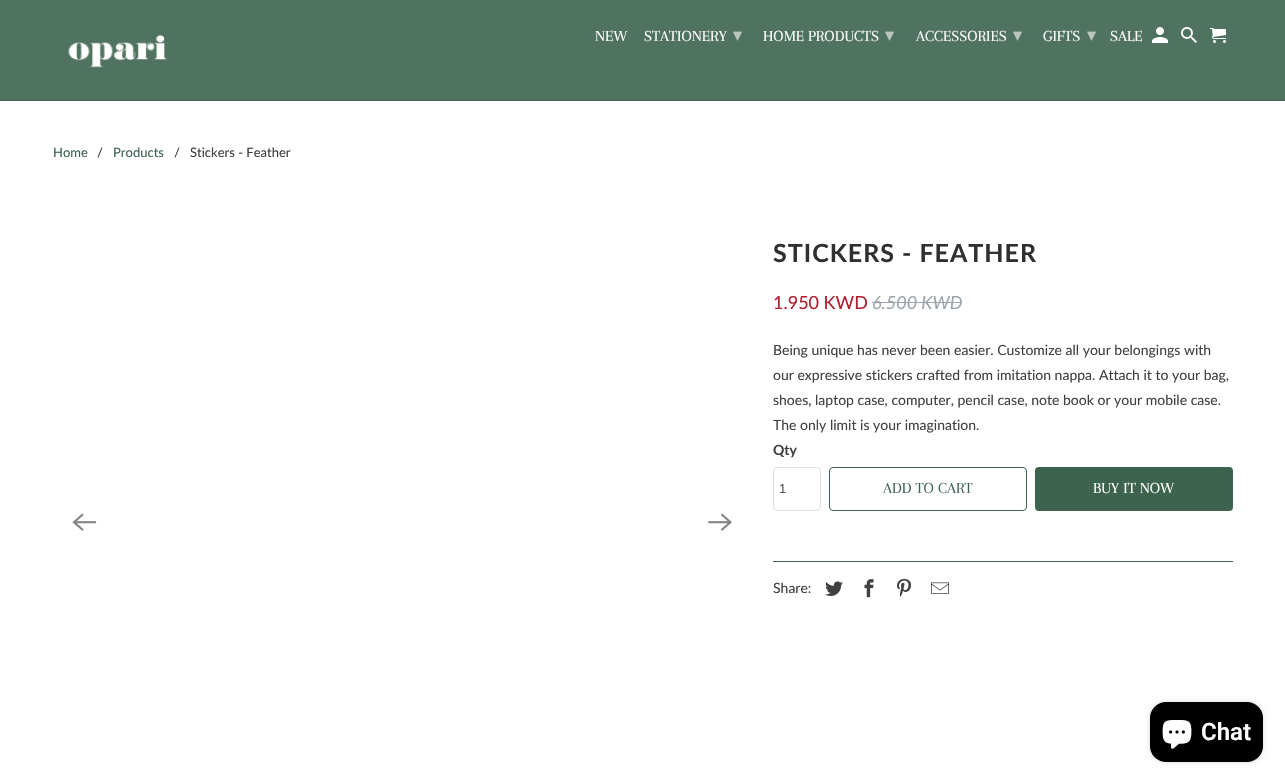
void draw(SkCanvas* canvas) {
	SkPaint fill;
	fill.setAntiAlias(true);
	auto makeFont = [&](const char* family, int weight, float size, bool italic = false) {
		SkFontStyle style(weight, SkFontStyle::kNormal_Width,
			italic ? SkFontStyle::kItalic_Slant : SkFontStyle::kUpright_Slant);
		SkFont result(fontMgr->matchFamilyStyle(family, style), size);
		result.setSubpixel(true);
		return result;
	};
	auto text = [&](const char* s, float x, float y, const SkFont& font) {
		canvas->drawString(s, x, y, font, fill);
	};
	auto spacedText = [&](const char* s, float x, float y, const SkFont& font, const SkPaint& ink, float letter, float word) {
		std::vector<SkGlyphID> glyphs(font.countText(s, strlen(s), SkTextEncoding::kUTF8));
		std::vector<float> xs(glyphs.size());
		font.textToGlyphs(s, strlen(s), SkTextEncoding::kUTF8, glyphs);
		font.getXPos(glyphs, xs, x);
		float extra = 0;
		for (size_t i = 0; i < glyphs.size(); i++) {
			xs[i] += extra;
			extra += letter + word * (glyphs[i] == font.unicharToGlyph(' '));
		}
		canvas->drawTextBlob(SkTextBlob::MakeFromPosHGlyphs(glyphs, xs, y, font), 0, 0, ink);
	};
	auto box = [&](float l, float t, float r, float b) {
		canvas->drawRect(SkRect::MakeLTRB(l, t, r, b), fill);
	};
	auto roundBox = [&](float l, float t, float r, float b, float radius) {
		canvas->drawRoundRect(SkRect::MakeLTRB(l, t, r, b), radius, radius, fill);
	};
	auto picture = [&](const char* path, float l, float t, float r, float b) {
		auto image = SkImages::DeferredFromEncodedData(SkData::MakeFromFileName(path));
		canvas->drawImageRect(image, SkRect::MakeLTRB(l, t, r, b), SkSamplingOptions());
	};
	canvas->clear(0xFFFFFFFF);
	fill.setColor(0xFF507361);
	box(0, 0, 1285, 100);
	fill.setColor(0xFF3D634F);
	box(0, 100, 1285, 101);
	picture("image0.png", 68, 35, 167, 68);
	picture("image1.png", 1152, 27, 1168, 43);
	picture("image2.png", 1181, 27, 1197, 43);
	picture("image3.png", 1210, 28, 1226, 43);
	picture("image4.png", 72, 513, 97, 531);
	picture("image5.png", 708, 513, 732, 531);
	fill.setColor(0xFF9DA6AE);
	box(872, 302, 962, 303);
	fill.setStyle(SkPaint::kStroke_Style);
	fill.setStrokeWidth(1);
	fill.setColor(0xFFDCE0E0);
	canvas->drawRoundRect(SkRect::MakeLTRB(773.5f, 467.5f, 820.5f, 510.5f), 3.5f, 3.5f, fill);
	fill.setColor(0xFF3D634F);
	canvas->drawRoundRect(SkRect::MakeLTRB(829.5f, 467.5f, 1026.5f, 510.5f), 3.5f, 3.5f, fill);
	fill.setStyle(SkPaint::kFill_Style);
	roundBox(1035, 467, 1233, 511, 4);
	box(773, 561, 1233, 562);
	picture("image6.png", 825, 581, 843, 596);
	picture("image7.png", 864, 579, 874, 598);
	picture("image8.png", 897, 578, 911, 597);
	picture("image9.png", 931, 582, 949, 594);
	fill.setColor(0x26000000);
	fill.setMaskFilter(SkMaskFilter::MakeBlur(kNormal_SkBlurStyle, 2.5f));
	canvas->drawRoundRect(SkRect::MakeLTRB(1150, 702, 1263, 762), 16, 16, fill);
	fill.setMaskFilter(nullptr);
	fill.setColor(0xFF000000);
	roundBox(1150, 702, 1263, 762, 16);
	picture("image10.png", 1162, 720, 1192, 749);
	auto font1 = makeFont("Arapey", 400, 16);
	fill.setColor(0xFFFFFFFF);
	text("NEW", 595, 41, font1);
	text("STATIONERY", 644, 41, font1);
	auto font2 = makeFont("DejaVu Sans", 400, 18);
	fill.setColor(0xFFB9C7C0);
	text("▾", 733, 41, font2);
	fill.setColor(0xFFFFFFFF);
	text("HOME PRODUCTS", 763, 41, font1);
	fill.setColor(0xFFB9C7C0);
	text("▾", 885, 41, font2);
	fill.setColor(0xFFFFFFFF);
	text("ACCESSORIES", 916, 41, font1);
	fill.setColor(0xFFB9C7C0);
	text("▾", 1013, 41, font2);
	fill.setColor(0xFFFFFFFF);
	text("GIFTS", 1043, 41, font1);
	fill.setColor(0xFFB9C7C0);
	text("▾", 1087, 41, font2);
	fill.setColor(0xFFFFFFFF);
	text("SALE", 1110, 41, font1);
	auto font3 = makeFont("Lato", 400, 13);
	fill.setColor(0xFF3D634F);
	text("Home", 53, 157, font3);
	fill.setColor(0xFF404040);
	text("/", 97, 157, font3);
	fill.setColor(0xFF3D634F);
	text("Products", 113, 157, font3);
	fill.setColor(0xFF404040);
	text("/", 174, 157, font3);
	text("Stickers - Feather", 190, 157, font3);
	auto font4 = makeFont("Lato", 700, 25);
	fill.setColor(0xFF303030);
	spacedText("STICKERS - FEATHER", 773, 262, font4, fill, 1, 0);
	auto font5 = makeFont("Lato", 400, 18);
	fill.setColor(0xFFAF1F31);
	text("1.950 KWD", 773, 309, font5);
	auto font6 = makeFont("Lato", 400, 18, true);
	fill.setColor(0xFF9DA6AE);
	text("6.500 KWD", 872, 309, font6);
	auto font7 = makeFont("Lato", 400, 14);
	fill.setColor(0xFF404040);
	text("Being unique has never been easier. Customize all your belongings with", 773, 355, font7);
	text("our expressive stickers crafted from imitation nappa. Attach it to your bag,", 773, 380, font7);
	text("shoes, laptop case, computer, pencil case, note book or your mobile case.", 773, 405, font7);
	text("The only limit is your imagination.", 773, 430, font7);
	auto font8 = makeFont("Lato", 700, 14);
	text("Qty", 773, 455, font8);
	auto font9 = makeFont("Liberation Sans", 400, 13);
	fill.setColor(0xFF565A5C);
	text("1", 779, 493, font9);
	fill.setColor(0xFF3D634F);
	text("ADD TO CART", 883, 493, font1);
	fill.setColor(0xFFFFFFFF);
	text("BUY IT NOW", 1093, 493, font1);
	fill.setColor(0xFF404040);
	text("Share:", 773, 593, font7);
	auto font10 = makeFont("Roboto", 600, 24);
	fill.setColor(0xFFFFFFFF);
	text("Chat", 1201, 740, font10);
}
